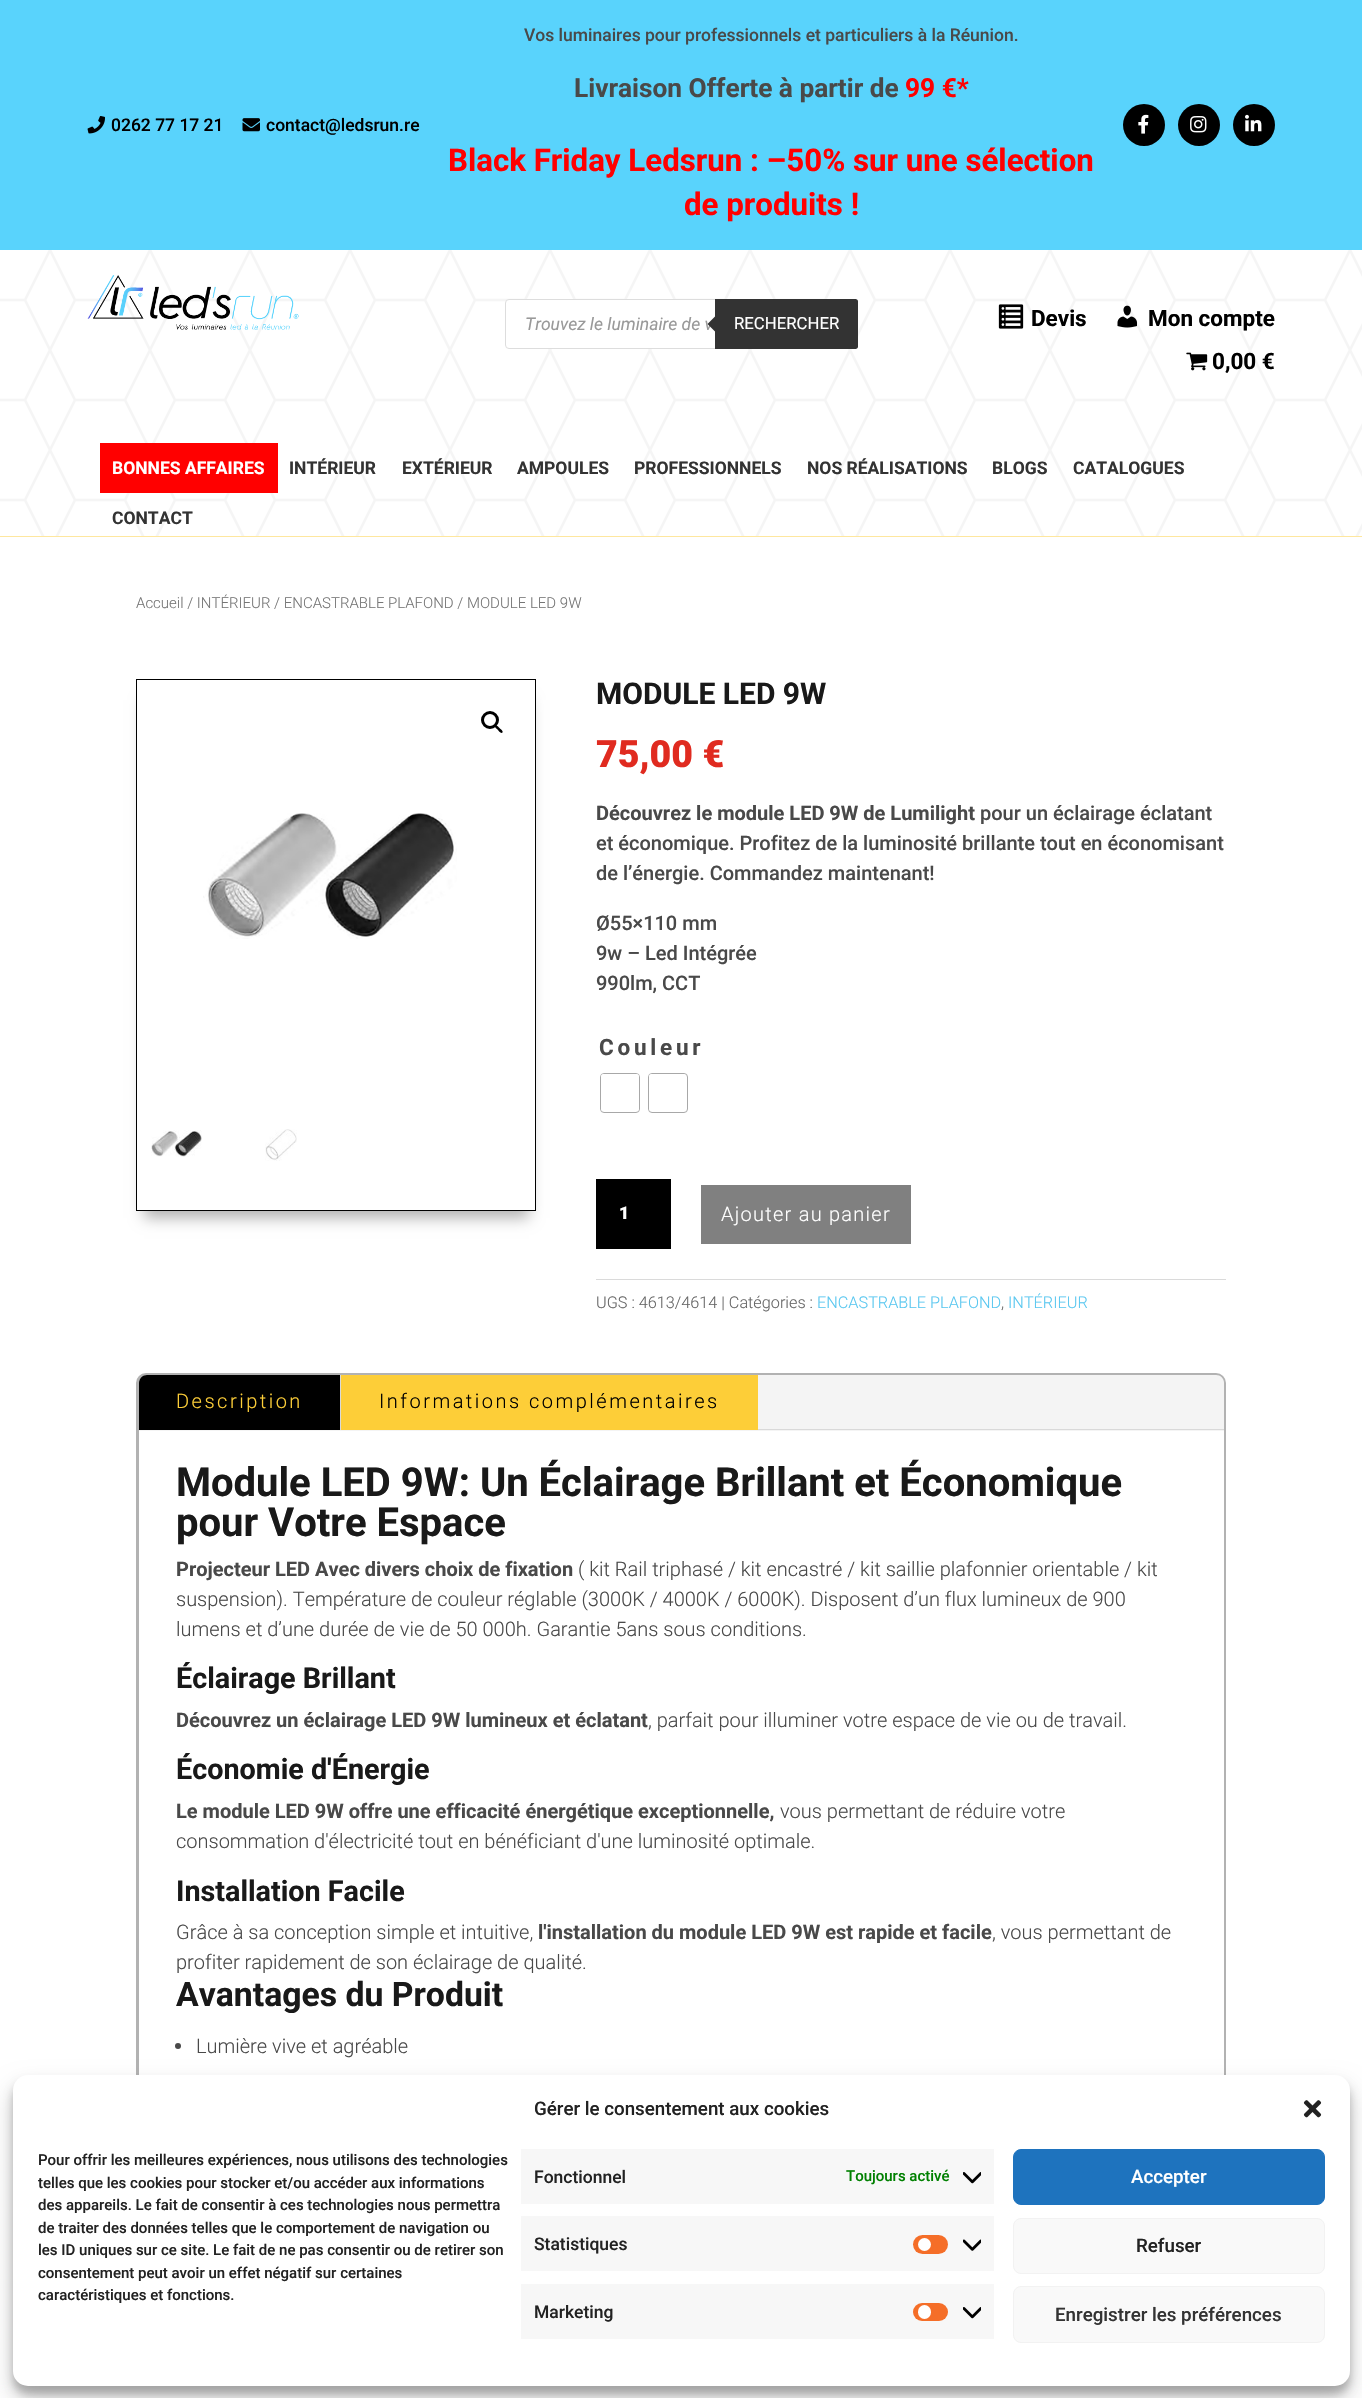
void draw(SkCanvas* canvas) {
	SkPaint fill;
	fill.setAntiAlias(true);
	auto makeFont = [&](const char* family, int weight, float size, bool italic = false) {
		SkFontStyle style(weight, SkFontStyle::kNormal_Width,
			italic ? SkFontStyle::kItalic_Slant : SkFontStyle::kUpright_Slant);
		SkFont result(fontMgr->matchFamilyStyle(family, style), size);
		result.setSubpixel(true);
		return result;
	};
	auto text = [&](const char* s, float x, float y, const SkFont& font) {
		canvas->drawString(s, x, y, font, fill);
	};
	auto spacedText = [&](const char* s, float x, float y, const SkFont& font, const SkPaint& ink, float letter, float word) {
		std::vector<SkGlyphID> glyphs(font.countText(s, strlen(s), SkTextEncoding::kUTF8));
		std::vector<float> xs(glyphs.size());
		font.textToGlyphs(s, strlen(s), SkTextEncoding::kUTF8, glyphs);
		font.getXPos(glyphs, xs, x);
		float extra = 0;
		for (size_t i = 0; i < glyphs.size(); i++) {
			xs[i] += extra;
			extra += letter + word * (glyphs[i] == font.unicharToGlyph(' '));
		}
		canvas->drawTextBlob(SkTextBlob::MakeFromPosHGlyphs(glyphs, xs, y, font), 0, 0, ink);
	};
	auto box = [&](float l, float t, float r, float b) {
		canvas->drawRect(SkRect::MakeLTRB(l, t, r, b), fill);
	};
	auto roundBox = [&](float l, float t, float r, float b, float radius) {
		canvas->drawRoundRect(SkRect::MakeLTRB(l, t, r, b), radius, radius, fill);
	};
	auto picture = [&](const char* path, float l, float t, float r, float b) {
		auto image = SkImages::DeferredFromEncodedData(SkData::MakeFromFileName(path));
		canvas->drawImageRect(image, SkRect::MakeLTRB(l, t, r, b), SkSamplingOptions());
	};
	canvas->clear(0xFFFFFFFF);
	fill.setColor(0xFFFEE79F);
	box(0, 536, 1362, 537);
	fill.setColor(0xFF59D3FC);
	box(0, 0, 1362, 250);
	picture("image0.png", 87, 116, 105, 134);
	picture("image1.png", 242, 118, 260, 132);
	fill.setColor(0xFF000000);
	canvas->drawCircle(1144, 125, 21, fill);
	picture("image2.png", 1138, 114, 1149, 134);
	canvas->drawCircle(1199, 125, 21, fill);
	picture("image3.png", 1190, 116, 1207, 133);
	canvas->drawCircle(1254, 125, 21, fill);
	picture("image4.png", 1245, 114, 1262, 132);
	picture("image5.png", 0, 250, 1362, 536);
	picture("image6.png", 87, 275, 299, 330);
	fill.setColor(0xFFFFFFFF);
	canvas->drawRoundRect(SkRect::MakeLTRB(505.5f, 299.5f, 857.5f, 348.5f), 3.5f, 3.5f, fill);
	fill.setStyle(SkPaint::kStroke_Style);
	fill.setStrokeWidth(1);
	fill.setColor(0xFFDDDDDD);
	canvas->drawRoundRect(SkRect::MakeLTRB(505.5f, 299.5f, 857.5f, 348.5f), 3.5f, 3.5f, fill);
	fill.setStyle(SkPaint::kFill_Style);
	fill.setColor(0xFF333333);
	canvas->drawPath(SkPathBuilder().moveTo(715, 299).lineTo(855.5f, 299).cubicTo(857, 299, 858, 300, 858, 301.5f).lineTo(858, 346.5f).cubicTo(858, 348, 857, 349, 855.5f, 349).lineTo(715, 349).close().detach(), fill);
	picture("image7.png", 998, 304, 1024, 329);
	picture("image8.png", 1117, 305, 1137, 328);
	picture("image9.png", 1186, 352, 1208, 371);
	fill.setColor(0xFFFF0000);
	box(100, 443, 278, 493);
	canvas->save();
	canvas->clipPath(SkPathBuilder(SkPathFillType::kEvenOdd).moveTo(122, 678).lineTo(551, 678).lineTo(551, 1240).lineTo(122, 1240).close().moveTo(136, 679).lineTo(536, 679).lineTo(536, 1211).lineTo(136, 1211).close().detach(), true);
	fill.setColor(0x4D000000);
	fill.setMaskFilter(SkMaskFilter::MakeBlur(kNormal_SkBlurStyle, 7));
	canvas->drawRect(SkRect::MakeLTRB(144, 700, 529, 1218), fill);
	fill.setMaskFilter(nullptr);
	canvas->restore();
	fill.setStyle(SkPaint::kStroke_Style);
	fill.setColor(0xFF000000);
	canvas->drawRect(SkRect::MakeLTRB(136.5f, 679.5f, 535.5f, 1210.5f), fill);
	fill.setStrokeWidth(3);
	canvas->drawCircle(490, 720, 7.5f, fill);
	fill.setStyle(SkPaint::kFill_Style);
	canvas->drawPath(SkPathBuilder().moveTo(495, 725.5f).cubicTo(496.5f, 724, 499, 727.5f, 499.5f, 728).cubicTo(500.5f, 729, 503.5f, 731, 502.5f, 732.5f).cubicTo(501, 734, 498.5f, 731, 498, 730).cubicTo(497, 729, 494, 727, 495, 725.5f).close().detach(), fill);
	picture("image10.png", 203, 813, 457, 939);
	picture("image11.png", 151, 1130, 202, 1157);
	picture("image12.png", 265, 1129, 297, 1161);
	fill.setStyle(SkPaint::kStroke_Style);
	fill.setStrokeWidth(1);
	fill.setColor(0xFFA8A8A8);
	canvas->drawRoundRect(SkRect::MakeLTRB(600.5f, 1073.5f, 639.5f, 1112.5f), 3.5f, 3.5f, fill);
	fill.setStyle(SkPaint::kFill_Style);
	fill.setColor(0xFFFFFFFF);
	roundBox(601, 1074, 639, 1111, 2.5f);
	fill.setStyle(SkPaint::kStroke_Style);
	fill.setColor(0xFFA8A8A8);
	canvas->drawRoundRect(SkRect::MakeLTRB(648.5f, 1073.5f, 687.5f, 1112.5f), 3.5f, 3.5f, fill);
	fill.setStyle(SkPaint::kFill_Style);
	fill.setColor(0xFFFFFFFF);
	roundBox(649, 1074, 686, 1111, 2.5f);
	fill.setColor(0xFF000000);
	box(596, 1179, 671, 1249);
	fill.setColor(0xFF808080);
	box(701, 1185, 911, 1244);
	fill.setColor(0xFFDADADA);
	box(596, 1279, 1226, 1280);
	fill.setStyle(SkPaint::kStroke_Style);
	fill.setStrokeWidth(3);
	fill.setColor(0xFFB2B2B2);
	canvas->drawRoundRect(SkRect::MakeLTRB(137.5f, 1374.5f, 1224.5f, 2263.5f), 8.5f, 8.5f, fill);
	fill.setStyle(SkPaint::kFill_Style);
	fill.setColor(0xFFF4F4F4);
	canvas->drawPath(SkPathBuilder().moveTo(147, 1375).lineTo(1216, 1375).cubicTo(1220.5f, 1375, 1224, 1378.5f, 1224, 1383).lineTo(1224, 1431).lineTo(139, 1431).lineTo(139, 1383).cubicTo(139, 1378.5f, 142.5f, 1375, 147, 1375).close().detach(), fill);
	fill.setColor(0xFF000000);
	canvas->drawPath(SkPathBuilder().moveTo(147, 1375).lineTo(341, 1375).lineTo(341, 1430).lineTo(139, 1430).lineTo(139, 1383).cubicTo(139, 1378.5f, 142.5f, 1375, 147, 1375).close().detach(), fill);
	fill.setColor(0xFFD9D9D9);
	box(340, 1375, 341, 1430);
	fill.setColor(0xFFFDCE38);
	box(341, 1375, 758, 1430);
	fill.setColor(0xFFD9D9D9);
	box(758, 1429, 1224, 1430);
	fill.setColor(0xFFFFFFFF);
	box(1223, 1431, 1224, 2075);
	fill.setColor(0xFF494949);
	canvas->drawCircle(178, 2046, 3, fill);
	fill.setColor(0x3B000000);
	fill.setMaskFilter(SkMaskFilter::MakeBlur(kNormal_SkBlurStyle, 4));
	canvas->drawRoundRect(SkRect::MakeLTRB(13, 2083, 1350, 2394), 15, 15, fill);
	fill.setMaskFilter(nullptr);
	fill.setColor(0x30000000);
	fill.setMaskFilter(SkMaskFilter::MakeBlur(kNormal_SkBlurStyle, 12.5f));
	canvas->drawRoundRect(SkRect::MakeLTRB(13, 2088, 1350, 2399), 15, 15, fill);
	fill.setMaskFilter(nullptr);
	fill.setColor(0xFFFFFFFF);
	roundBox(13, 2075, 1350, 2386, 15);
	picture("image13.png", 1303, 2100, 1322, 2118);
	fill.setColor(0xFFF7F7F7);
	box(521, 2149, 994, 2204);
	picture("image14.png", 963, 2172, 981, 2184);
	box(521, 2216, 994, 2271);
	fill.setColor(0xFFF56E28);
	roundBox(913, 2235, 948, 2254, 9.5f);
	fill.setColor(0xFFFFFFFF);
	canvas->drawCircle(924.5f, 2244.5f, 6.5f, fill);
	picture("image15.png", 963, 2239, 981, 2251);
	fill.setColor(0xFFF7F7F7);
	box(521, 2284, 994, 2339);
	fill.setColor(0xFFF56E28);
	roundBox(913, 2303, 948, 2321, 9);
	fill.setColor(0xFFFFFFFF);
	roundBox(918, 2305, 931, 2319, 6.5f);
	picture("image14.png", 963, 2307, 981, 2319);
	fill.setColor(0xFF1E73BE);
	canvas->drawRoundRect(SkRect::MakeLTRB(1013.5f, 2149.5f, 1324.5f, 2204.5f), 7.5f, 7.5f, fill);
	fill.setStyle(SkPaint::kStroke_Style);
	fill.setStrokeWidth(1);
	canvas->drawRoundRect(SkRect::MakeLTRB(1013.5f, 2149.5f, 1324.5f, 2204.5f), 7.5f, 7.5f, fill);
	fill.setStyle(SkPaint::kFill_Style);
	fill.setColor(0xFFF9F9F9);
	canvas->drawRoundRect(SkRect::MakeLTRB(1013.5f, 2218.5f, 1324.5f, 2273.5f), 7.5f, 7.5f, fill);
	fill.setStyle(SkPaint::kStroke_Style);
	fill.setColor(0xFFF2F2F2);
	canvas->drawRoundRect(SkRect::MakeLTRB(1013.5f, 2218.5f, 1324.5f, 2273.5f), 7.5f, 7.5f, fill);
	fill.setStyle(SkPaint::kFill_Style);
	fill.setColor(0xFFF9F9F9);
	canvas->drawRoundRect(SkRect::MakeLTRB(1013.5f, 2286.5f, 1324.5f, 2342.5f), 7.5f, 7.5f, fill);
	fill.setStyle(SkPaint::kStroke_Style);
	fill.setColor(0xFFF2F2F2);
	canvas->drawRoundRect(SkRect::MakeLTRB(1013.5f, 2286.5f, 1324.5f, 2342.5f), 7.5f, 7.5f, fill);
	auto font1 = makeFont("Roboto", 500, 17.5f);
	fill.setStyle(SkPaint::kFill_Style);
	fill.setColor(0xFF000000);
	text("0262 77 17 21", 111, 131, font1);
	text("contact@ledsrun.re", 266, 131, font1);
	fill.setColor(0xFF494949);
	text("Vos luminaires pour professionnels et particuliers à la Réunion.", 524, 41, font1);
	auto font2 = makeFont("Roboto", 700, 26.25f);
	text("Livraison Offerte à partir de", 574, 97, font2);
	fill.setColor(0xFFFF0000);
	text("99 €*", 905, 97, font2);
	auto font3 = makeFont("Roboto", 700, 31.25f);
	text("Black Friday Ledsrun : –50% sur une sélection", 448, 171, font3);
	text("de produits !", 684, 215, font3);
	auto font4 = makeFont("Roboto", 400, 17.5f, true);
	fill.setColor(0xFF999999);
	text("Trouvez le luminaire de v", 525, 330, font4);
	fill.setColor(0xFF333333);
	canvas->drawPath(SkPathBuilder().moveTo(717.5f, 314).lineTo(717.5f, 334).lineTo(707.5f, 324).close().detach(), fill);
	auto font5 = makeFont("Roboto", 400, 16.75f);
	fill.setColor(0xFFFFFFFF);
	text("RECHERCHER", 734, 329, font5);
	auto font6 = makeFont("Roboto", 700, 22.5f);
	fill.setColor(0xFF000000);
	text("Devis", 1031, 326, font6);
	text("Mon compte", 1148, 326, font6);
	text("0,00 €", 1212, 369, font6);
	auto font7 = makeFont("Roboto", 700, 17.5f);
	fill.setColor(0xFFFFFFFF);
	text("BONNES AFFAIRES", 112, 474, font7);
	fill.setColor(0xFF333333);
	text("INTÉRIEUR", 289, 474, font7);
	text("EXTÉRIEUR", 402, 474, font7);
	text("AMPOULES", 517, 474, font7);
	text("PROFESSIONNELS", 634, 474, font7);
	text("NOS RÉALISATIONS", 807, 474, font7);
	text("BLOGS", 992, 474, font7);
	text("CATALOGUES", 1073, 474, font7);
	text("CONTACT", 112, 524, font7);
	auto font8 = makeFont("Roboto", 300, 15);
	fill.setColor(0xFF767676);
	text("Accueil / INTÉRIEUR / ENCASTRABLE PLAFOND / MODULE LED 9W", 136, 608, font8);
	auto font9 = makeFont("Roboto", 700, 30);
	fill.setColor(0xFF191919);
	text("MODULE LED 9W", 596, 704, font9);
	auto font10 = makeFont("Roboto", 900, 37.5f);
	fill.setColor(0xFFE02B20);
	text("75,00 €", 596, 767, font10);
	auto font11 = makeFont("Roboto", 700, 20);
	fill.setColor(0xFF494949);
	text("Découvrez le module LED 9W de Lumilight", 596, 820, font11);
	auto font12 = makeFont("Roboto", 500, 20);
	text("pour un éclairage éclatant", 980, 820, font12);
	text("et économique. Profitez de la luminosité brillante tout en économisant", 596, 850, font12);
	text("de l’énergie. Commandez maintenant!", 596, 880, font12);
	text("Ø55×110 mm", 596, 930, font12);
	text("9w – Led Intégrée", 596, 960, font12);
	text("990lm, CCT", 596, 990, font12);
	spacedText("Couleur", 599, 1055, font6, fill, 3.75f, 0);
	auto font13 = makeFont("Roboto", 900, 17.5f);
	fill.setColor(0xFFFFFFFF);
	text("1", 619, 1219, font13);
	auto font14 = makeFont("Roboto", 300, 20);
	spacedText("Ajouter au panier", 721, 1221, font14, fill, 1.25f, 0);
	auto font15 = makeFont("Roboto", 300, 16.25f);
	fill.setColor(0xFF666666);
	text("UGS : 4613/4614 | Catégories :", 596, 1308, font15);
	fill.setColor(0xFF59C7F0);
	text("ENCASTRABLE PLAFOND", 817, 1308, font15);
	fill.setColor(0xFF666666);
	text(",", 1001, 1308, font15);
	fill.setColor(0xFF59C7F0);
	text("INTÉRIEUR", 1008, 1308, font15);
	fill.setColor(0xFFFDCE38);
	spacedText("Description", 176, 1408, font14, fill, 2.5f, 0);
	fill.setColor(0xFF000000);
	spacedText("Informations complémentaires", 379, 1408, font14, fill, 2.5f, 0);
	auto font16 = makeFont("Roboto", 700, 40);
	fill.setColor(0xFF191919);
	text("Module LED 9W: Un Éclairage Brillant et Économique", 176, 1496, font16);
	text("pour Votre Espace", 176, 1536, font16);
	fill.setColor(0xFF494949);
	text("Projecteur LED Avec divers choix de fixation", 176, 1576, font11);
	text("( kit Rail triphasé / kit encastré / kit saillie plafonnier orientable / kit", 578, 1576, font14);
	text("suspension). Température de couleur réglable (3000K / 4000K / 6000K). Disposent d’un flux lumineux de 900", 176, 1606, font14);
	text("lumens et d’une durée de vie de 50 000h. Garantie 5ans sous conditions.", 176, 1636, font14);
	auto font17 = makeFont("Roboto", 700, 28.75f);
	fill.setColor(0xFF191919);
	text("Éclairage Brillant", 176, 1688, font17);
	fill.setColor(0xFF494949);
	text("Découvrez un éclairage LED 9W lumineux et éclatant", 176, 1727, font11);
	text(", parfait pour illuminer votre espace de vie ou de travail.", 648, 1727, font14);
	fill.setColor(0xFF191919);
	text("Économie d'Énergie", 176, 1779, font17);
	fill.setColor(0xFF494949);
	text("Le module LED 9W offre une efficacité énergétique exceptionnelle,", 176, 1818, font11);
	text("vous permettant de réduire votre", 780, 1818, font14);
	text("consommation d'électricité tout en bénéficiant d'une luminosité optimale.", 176, 1848, font14);
	fill.setColor(0xFF191919);
	text("Installation Facile", 176, 1901, font17);
	fill.setColor(0xFF494949);
	text("Grâce à sa conception simple et intuitive,", 176, 1939, font14);
	text("l'installation du module LED 9W est rapide et facile", 538, 1939, font11);
	text(", vous permettant de", 992, 1939, font14);
	text("profiter rapidement de son éclairage de qualité.", 176, 1969, font14);
	auto font18 = makeFont("Roboto", 700, 33.75f);
	fill.setColor(0xFF191919);
	text("Avantages du Produit", 176, 2006, font18);
	fill.setColor(0xFF494949);
	text("Lumière vive et agréable", 196, 2053, font14);
	auto font19 = makeFont("Roboto", 500, 18.75f);
	fill.setColor(0xFF222222);
	text("Gérer le consentement aux cookies", 534, 2115, font19);
	auto font20 = makeFont("Roboto", 500, 15);
	text("Pour offrir les meilleures expériences, nous utilisons des technologies", 38, 2165, font20);
	text("telles que les cookies pour stocker et/ou accéder aux informations", 38, 2188, font20);
	text("des appareils. Le fait de consentir à ces technologies nous permettra", 38, 2210, font20);
	text("de traiter des données telles que le comportement de navigation ou", 38, 2233, font20);
	text("les ID uniques sur ce site. Le fait de ne pas consentir ou de retirer son", 38, 2255, font20);
	text("consentement peut avoir un effet négatif sur certaines", 38, 2278, font20);
	text("caractéristiques et fonctions.", 38, 2300, font20);
	text("Fonctionnel", 534, 2183, font1);
	fill.setColor(0xFF008000);
	text("Toujours activé", 846, 2181, font20);
	fill.setColor(0xFF222222);
	text("Statistiques", 534, 2250, font1);
	text("Marketing", 534, 2318, font1);
	fill.setColor(0xFFFFFFFF);
	text("Accepter", 1131, 2183, font19);
	fill.setColor(0xFF222222);
	text("Refuser", 1136, 2252, font19);
	fill.setColor(0xFF333333);
	text("Enregistrer les préférences", 1055, 2321, font19);
}
